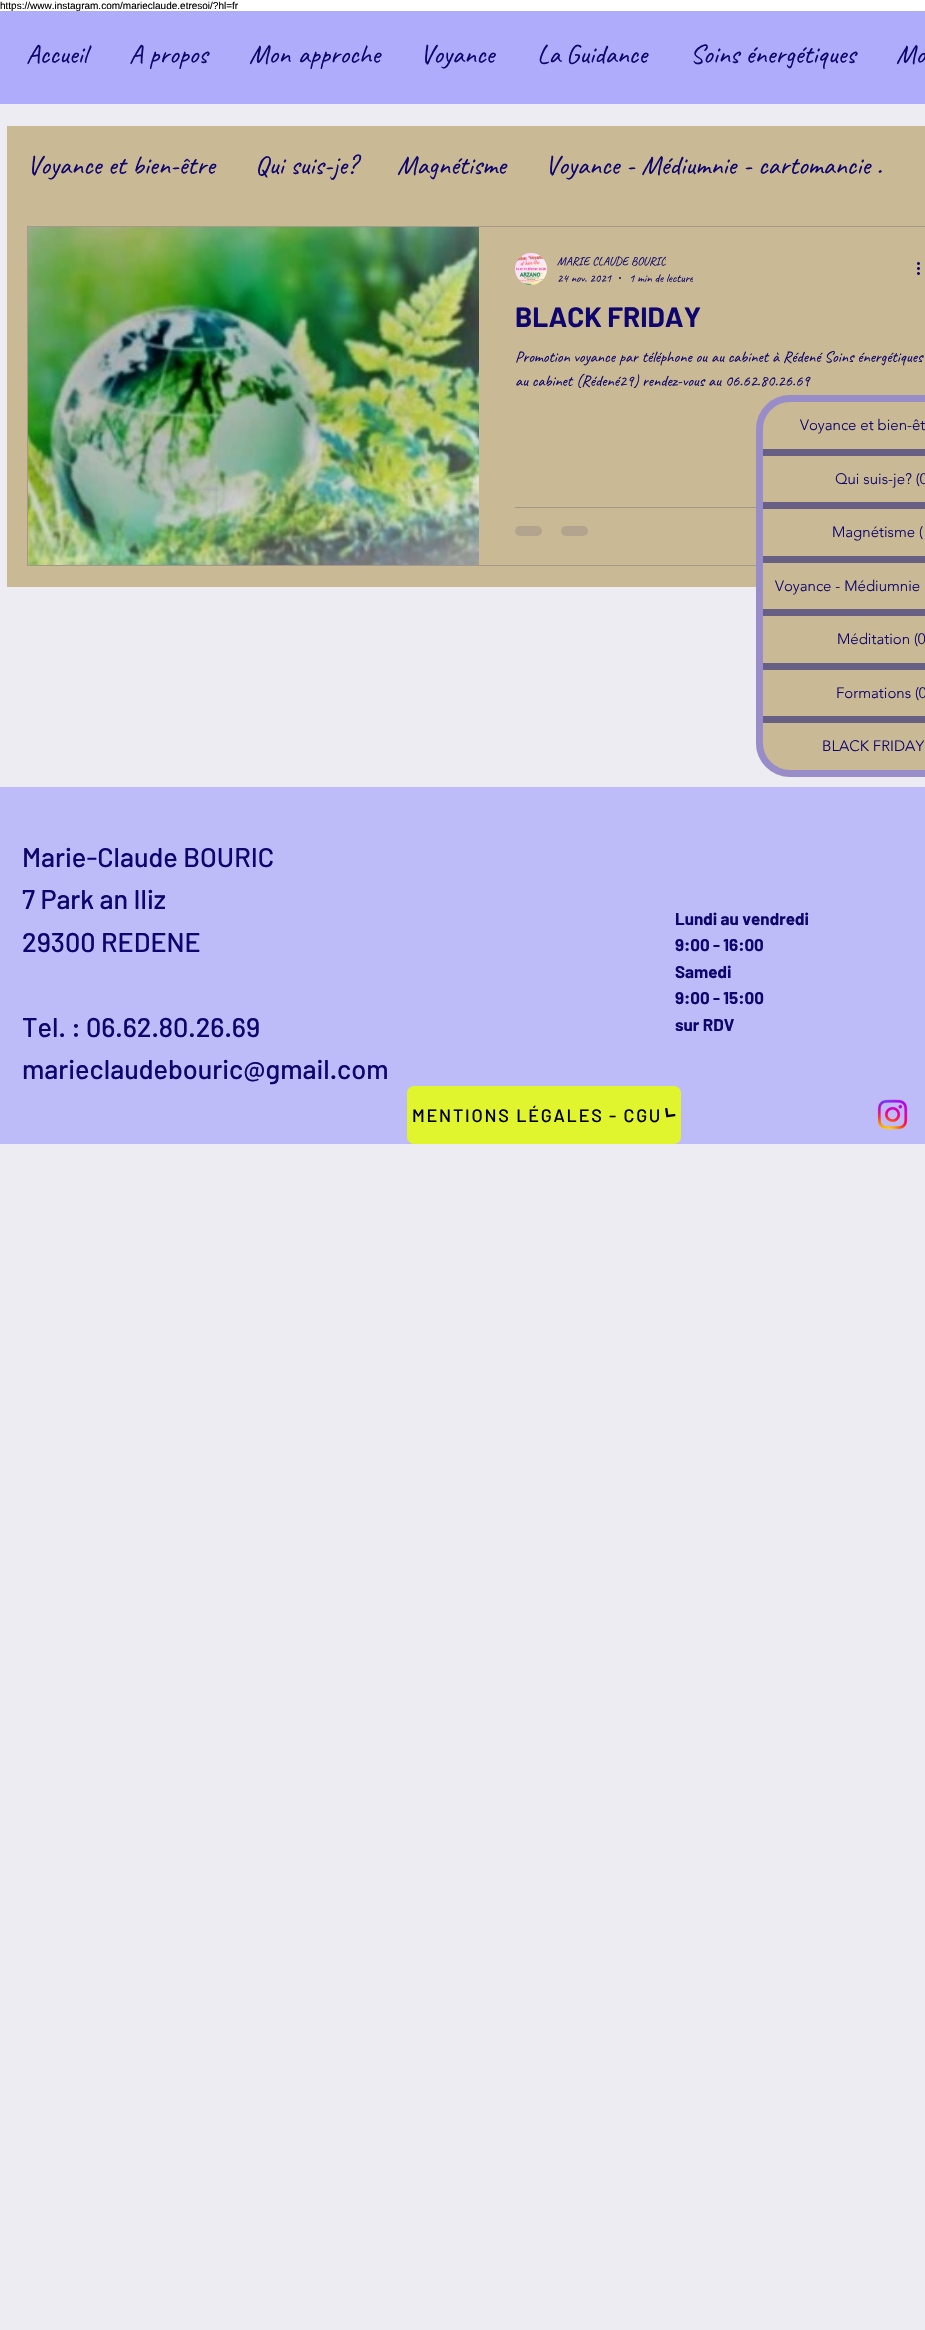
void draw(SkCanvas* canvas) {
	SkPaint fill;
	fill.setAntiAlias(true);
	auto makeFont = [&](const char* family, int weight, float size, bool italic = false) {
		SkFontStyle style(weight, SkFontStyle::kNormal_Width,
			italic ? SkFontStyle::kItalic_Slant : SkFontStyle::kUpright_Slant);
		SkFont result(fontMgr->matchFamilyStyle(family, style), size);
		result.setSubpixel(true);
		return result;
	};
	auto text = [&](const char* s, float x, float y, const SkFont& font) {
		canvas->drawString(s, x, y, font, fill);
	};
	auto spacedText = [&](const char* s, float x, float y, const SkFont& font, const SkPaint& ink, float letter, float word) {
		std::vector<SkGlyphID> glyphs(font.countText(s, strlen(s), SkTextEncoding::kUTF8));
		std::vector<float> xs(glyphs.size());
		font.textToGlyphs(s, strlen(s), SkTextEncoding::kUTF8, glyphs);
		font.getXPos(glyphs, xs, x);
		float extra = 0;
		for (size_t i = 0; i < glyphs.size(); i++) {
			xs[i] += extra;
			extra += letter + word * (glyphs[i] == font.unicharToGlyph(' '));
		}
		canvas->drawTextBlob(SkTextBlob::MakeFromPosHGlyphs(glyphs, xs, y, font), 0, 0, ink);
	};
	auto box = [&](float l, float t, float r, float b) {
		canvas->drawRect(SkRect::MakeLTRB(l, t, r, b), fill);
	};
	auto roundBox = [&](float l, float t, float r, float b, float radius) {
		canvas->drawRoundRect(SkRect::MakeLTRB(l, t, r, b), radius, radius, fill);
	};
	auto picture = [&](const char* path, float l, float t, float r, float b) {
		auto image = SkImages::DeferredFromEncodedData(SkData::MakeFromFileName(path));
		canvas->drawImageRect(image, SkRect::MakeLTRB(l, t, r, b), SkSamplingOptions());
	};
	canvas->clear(0xFFFFFFFF);
	fill.setColor(0xFFEEECF3);
	box(0, 104, 925, 2330);
	fill.setColor(0xFFC9B994);
	box(7, 126, 925, 587);
	fill.setStyle(SkPaint::kStroke_Style);
	fill.setStrokeWidth(1);
	fill.setColor(0xFFA6978D);
	canvas->drawRect(SkRect::MakeLTRB(27.5f, 226.5f, 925.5f, 565.5f), fill);
	picture("image1.png", 28, 564, 479, 565);
	picture("image0.png", 28, 227, 479, 565);
	picture("image2.png", 515, 253, 547, 285);
	fill.setStyle(SkPaint::kFill_Style);
	fill.setColor(0xFF0E066E);
	canvas->drawCircle(620, 278, 1, fill);
	picture("image3.png", 917, 262, 920, 275);
	fill.setColor(0xFFA4958C);
	box(515, 507, 756, 508);
	fill.setColor(0xFFB3A48F);
	roundBox(515, 526, 542, 536, 5);
	roundBox(561, 526, 588, 536, 5);
	fill.setColor(0xFFC9B994);
	roundBox(756, 395, 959, 777, 34);
	fill.setStyle(SkPaint::kStroke_Style);
	fill.setStrokeWidth(7);
	fill.setColor(0xAB8078E3);
	canvas->drawRoundRect(SkRect::MakeLTRB(759.5f, 398.5f, 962.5f, 773.5f), 30.5f, 30.5f, fill);
	fill.setStyle(SkPaint::kFill_Style);
	fill.setColor(0xFF686084);
	box(763, 449, 925, 456);
	box(763, 502, 925, 509);
	box(763, 556, 925, 563);
	box(763, 609, 925, 616);
	box(763, 663, 925, 670);
	box(763, 716, 925, 723);
	fill.setColor(0xFFBEBBF9);
	box(0, 787, 925, 1144);
	fill.setColor(0xFFE1F52E);
	roundBox(407, 1086, 681, 1144, 7);
	picture("image4.png", 665, 1108, 676, 1118);
	picture("image5.png", 877, 1099, 908, 1130);
	auto font1 = makeFont("Liberation Sans", 400, 10);
	fill.setColor(0xFF000000);
	text("https://www.instagram.com/marieclaude.etresoi/?hl=fr", 0, 9, font1);
	fill.setColor(0xFFAFACFB);
	box(0, 11, 925, 104);
	auto font2 = makeFont("Caveat", 400, 27);
	fill.setColor(0xFF0E066E);
	text("Accueil", 26, 63, font2);
	text("A propos", 129, 63, font2);
	spacedText("Mon approche", 249, 63, font2, fill, 0, 1);
	text("Voyance", 420, 63, font2);
	spacedText("La Guidance", 537, 63, font2, fill, 0, -1);
	text("Soins énergétiques", 690, 63, font2);
	text("Mo", 896, 63, font2);
	text("Voyance et bien-être", 27, 174, font2);
	text("Qui suis-je?", 255, 174, font2);
	text("Magnétisme", 397, 174, font2);
	text("Voyance - Médiumnie - cartomancie .", 545, 174, font2);
	canvas->save();
	canvas->clipRect(SkRect::MakeLTRB(557, 253, 666, 269));
	auto font3 = makeFont("Caveat", 400, 12);
	text("MARIE CLAUDE BOURIC", 557, 265, font3);
	canvas->restore();
	text("24 nov. 2021", 557, 282, font3);
	canvas->save();
	canvas->clipRect(SkRect::MakeLTRB(629, 270, 693, 286));
	text("1 min de lecture", 629, 282, font3);
	canvas->restore();
	auto font4 = makeFont("Barlow", 700, 28);
	text("BLACK FRIDAY", 515, 327, font4);
	auto font5 = makeFont("Caveat", 400, 16);
	text("Promotion voyance", 515, 362, font5);
	text("par téléphone ou au cabinet à Rédené Soins énergétiques", 619, 362, font5);
	text("au cabinet (Rédené29)", 515, 386, font5);
	text("rendez-vous au 06.62.80.26.69", 642, 386, font5);
	auto font6 = makeFont("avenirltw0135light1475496", 300, 15);
	text("Voyance et bien-êt", 800, 430, font6);
	text("Qui suis-je? (0", 835, 484, font6);
	text("Magnétisme (", 832, 537, font6);
	text("Voyance - Médiumnie", 775, 591, font6);
	text("Méditation (0", 837, 644, font6);
	text("Formations (0", 836, 698, font6);
	text("BLACK FRIDAY", 822, 751, font6);
	auto font7 = makeFont("Barlow", 500, 27);
	text("Marie-Claude BOURIC", 22, 867, font7);
	text("7 Park an Iliz", 22, 909, font7);
	text("29300 REDENE", 22, 952, font7);
	text("Tel. : 06.62.80.26.69", 22, 1037, font7);
	text("marieclaudebouric@gmail.com", 22, 1079, font7);
	auto font8 = makeFont("Barlow", 700, 17);
	text("Lundi au vendredi", 675, 925, font8);
	text("9:00 - 16:00", 675, 951, font8);
	text("Samedi", 675, 978, font8);
	text("9:00 - 15:00", 675, 1004, font8);
	text("sur RDV", 675, 1031, font8);
	auto font9 = makeFont("Barlow", 500, 18);
	fill.setColor(0xFF000000);
	spacedText("MENTIONS LÉGALES - CGU", 412, 1122, font9, fill, 1.8f, 0);
}
